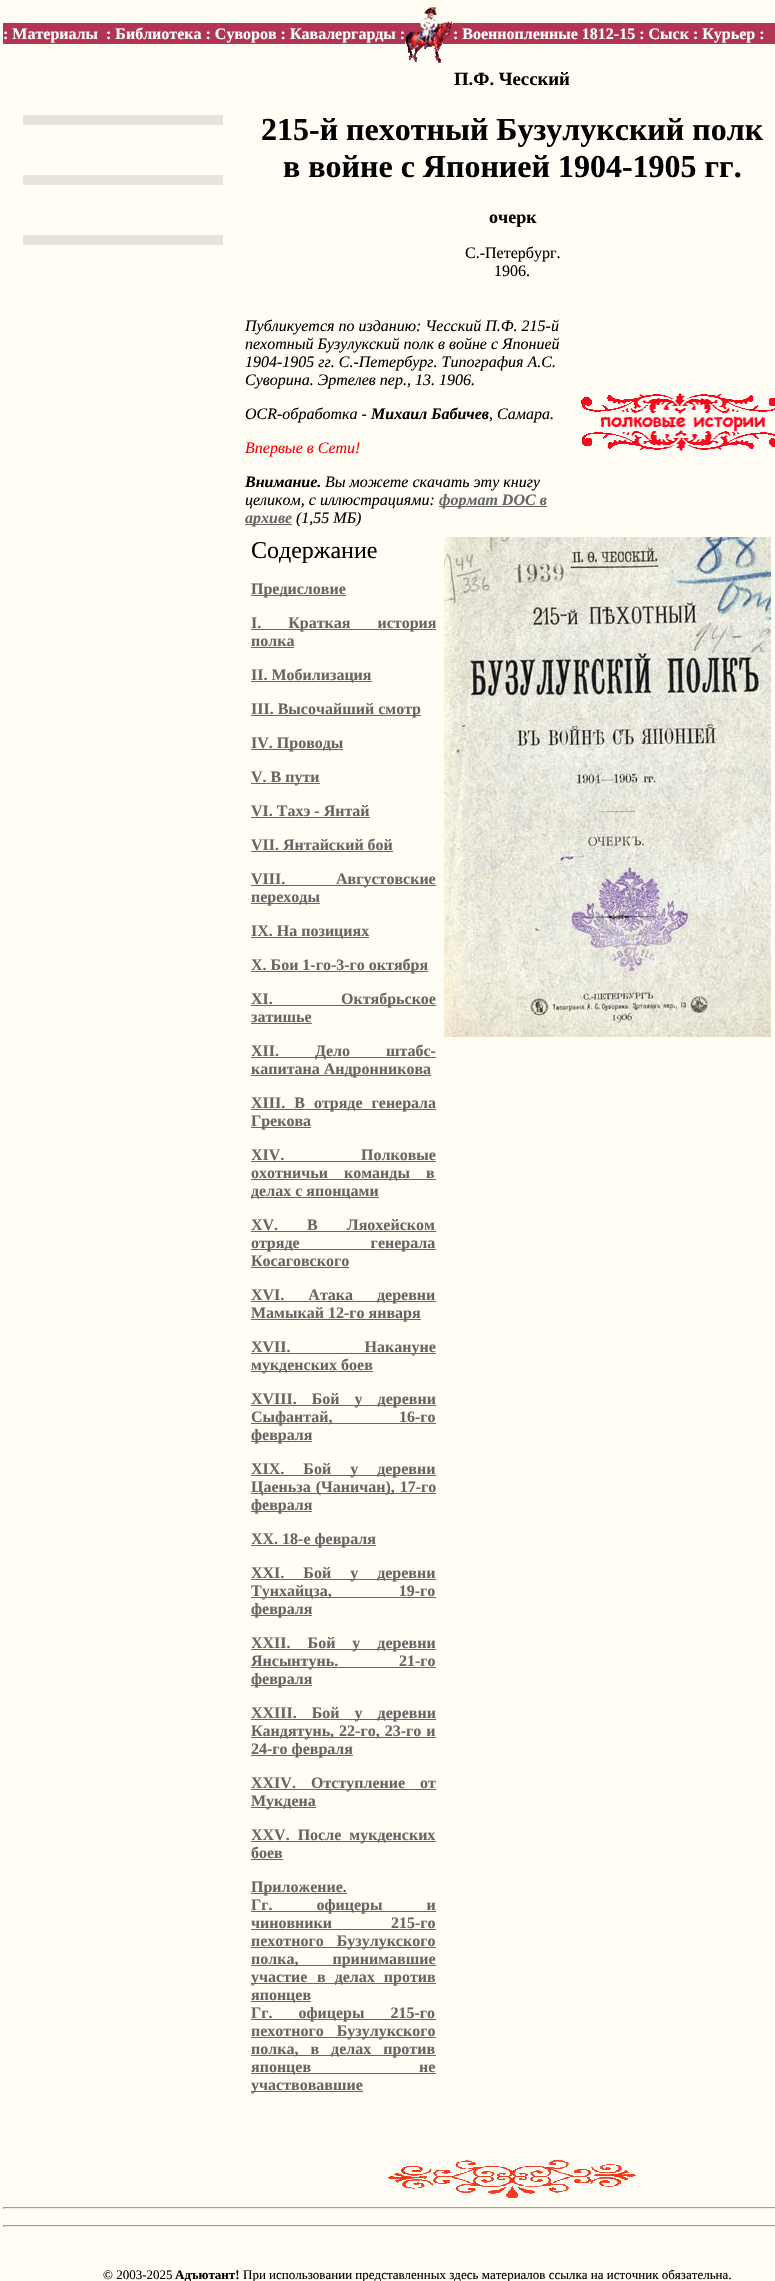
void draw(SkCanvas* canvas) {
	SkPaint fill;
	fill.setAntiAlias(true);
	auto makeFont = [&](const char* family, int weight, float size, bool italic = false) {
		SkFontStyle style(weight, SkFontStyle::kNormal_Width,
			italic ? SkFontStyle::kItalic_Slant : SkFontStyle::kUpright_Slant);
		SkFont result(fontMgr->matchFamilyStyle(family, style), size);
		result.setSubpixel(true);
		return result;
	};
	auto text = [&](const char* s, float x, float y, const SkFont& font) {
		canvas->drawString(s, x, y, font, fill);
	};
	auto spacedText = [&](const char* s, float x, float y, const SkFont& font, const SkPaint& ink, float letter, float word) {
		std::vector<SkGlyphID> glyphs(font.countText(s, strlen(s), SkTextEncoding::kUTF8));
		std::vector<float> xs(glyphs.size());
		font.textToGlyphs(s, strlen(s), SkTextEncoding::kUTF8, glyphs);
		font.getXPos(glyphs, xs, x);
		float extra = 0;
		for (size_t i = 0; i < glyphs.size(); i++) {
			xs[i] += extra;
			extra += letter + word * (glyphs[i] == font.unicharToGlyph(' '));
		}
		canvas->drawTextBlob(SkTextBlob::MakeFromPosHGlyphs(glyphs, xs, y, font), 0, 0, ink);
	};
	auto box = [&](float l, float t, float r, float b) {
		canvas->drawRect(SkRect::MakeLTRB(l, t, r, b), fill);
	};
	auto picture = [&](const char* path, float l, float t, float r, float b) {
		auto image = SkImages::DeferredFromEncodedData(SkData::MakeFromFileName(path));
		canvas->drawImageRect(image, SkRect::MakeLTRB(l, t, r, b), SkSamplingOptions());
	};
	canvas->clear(0xFFFFFDF4);
	picture("image0.png", 418, 7, 453, 23);
	fill.setColor(0xFFB23653);
	box(3, 23, 775, 44);
	picture("image1.png", 405, 23, 453, 44);
	picture("image2.png", 407, 44, 442, 63);
	fill.setColor(0xFFE6E4DB);
	box(23, 115, 223, 125);
	box(23, 175, 223, 185);
	box(23, 235, 223, 245);
	fill.setColor(0xFF666666);
	box(439, 506, 547, 507);
	box(245, 524, 292, 525);
	picture("image3.png", 581, 393, 775, 451);
	box(251, 595, 346, 596);
	box(251, 629, 436, 630);
	box(251, 647, 294, 648);
	box(251, 681, 372, 682);
	box(251, 715, 421, 716);
	box(251, 749, 343, 750);
	box(251, 783, 320, 784);
	box(251, 817, 370, 818);
	box(251, 851, 393, 852);
	box(251, 885, 436, 886);
	box(251, 903, 320, 904);
	box(251, 937, 369, 938);
	box(251, 971, 428, 972);
	box(251, 1005, 436, 1006);
	box(251, 1023, 312, 1024);
	box(251, 1057, 436, 1058);
	box(251, 1075, 431, 1076);
	box(251, 1109, 436, 1110);
	box(251, 1127, 311, 1128);
	box(251, 1161, 436, 1162);
	box(251, 1179, 436, 1180);
	box(251, 1197, 379, 1198);
	box(251, 1231, 436, 1232);
	box(251, 1249, 436, 1250);
	box(251, 1267, 349, 1268);
	box(251, 1301, 436, 1302);
	box(251, 1319, 421, 1320);
	box(251, 1353, 436, 1354);
	box(251, 1371, 373, 1372);
	box(251, 1405, 436, 1406);
	box(251, 1423, 436, 1424);
	box(251, 1441, 312, 1442);
	box(251, 1475, 436, 1476);
	box(251, 1493, 436, 1494);
	box(251, 1511, 312, 1512);
	box(251, 1545, 376, 1546);
	box(251, 1579, 436, 1580);
	box(251, 1597, 436, 1598);
	box(251, 1615, 312, 1616);
	box(251, 1649, 436, 1650);
	box(251, 1667, 436, 1668);
	box(251, 1685, 312, 1686);
	box(251, 1719, 436, 1720);
	box(251, 1737, 436, 1738);
	box(251, 1755, 353, 1756);
	box(251, 1789, 436, 1790);
	box(251, 1807, 316, 1808);
	box(251, 1841, 436, 1842);
	box(251, 1859, 283, 1860);
	box(251, 1893, 347, 1894);
	box(251, 1911, 436, 1912);
	box(251, 1929, 436, 1930);
	box(251, 1947, 436, 1948);
	box(251, 1965, 436, 1966);
	box(251, 1983, 436, 1984);
	box(251, 2001, 311, 2002);
	box(251, 2019, 436, 2020);
	box(251, 2037, 436, 2038);
	box(251, 2055, 436, 2056);
	box(251, 2073, 436, 2074);
	box(251, 2091, 363, 2092);
	picture("image4.png", 444, 537, 771, 1037);
	picture("image5.png", 388, 2160, 636, 2198);
	fill.setColor(0xFF9F9F9F);
	box(3, 2207, 775, 2208);
	fill.setColor(0xFFEEEEEE);
	box(3, 2208, 775, 2209);
	fill.setColor(0xFF9F9F9F);
	box(3, 2207, 4, 2209);
	box(3, 2225, 775, 2226);
	fill.setColor(0xFFEEEEEE);
	box(3, 2226, 775, 2227);
	fill.setColor(0xFF9F9F9F);
	box(3, 2225, 4, 2227);
	auto font1 = makeFont("Liberation Serif", 700, 16);
	fill.setColor(0xFFFFFFFF);
	text(": Материалы", 3, 39, font1);
	text(": Библиотека : Суворов : Кавалергарды :", 106, 39, font1);
	text(": Военнопленные 1812-15 : Сыск : Курьер :", 453, 39, font1);
	auto font2 = makeFont("Liberation Serif", 700, 18.75f);
	fill.setColor(0xFF000000);
	text("П.Ф. Чесский", 454, 85, font2);
	auto font3 = makeFont("Liberation Serif", 700, 32);
	text("215-й пехотный Бузулукский полк", 261, 140, font3);
	text("в войне с Японией 1904-1905 гг.", 283, 177, font3);
	auto font4 = makeFont("Liberation Serif", 700, 18);
	text("очерк", 489, 223, font4);
	auto font5 = makeFont("Liberation Serif", 400, 16);
	text("С.-Петербург.", 465, 258, font5);
	text("1906.", 494, 276, font5);
	auto font6 = makeFont("Liberation Serif", 400, 16, true);
	text("Публикуется по изданию: Чесский П.Ф. 215-й", 245, 331, font6);
	text("пехотный Бузулукский полк в войне с Японией", 245, 349, font6);
	text("1904-1905 гг. С.-Петербург. Типография А.С.", 245, 367, font6);
	text("Суворина. Эртелев пер., 13. 1906.", 245, 385, font6);
	text("OCR-обработка -", 245, 419, font6);
	auto font7 = makeFont("Liberation Serif", 700, 16, true);
	text("Михаил Бабичев", 371, 419, font7);
	text(", Самара.", 489, 419, font6);
	fill.setColor(0xFFFF0000);
	text("Впервые в Сети!", 245, 453, font6);
	fill.setColor(0xFF000000);
	text("Внимание.", 245, 487, font7);
	text("Вы можете скачать эту книгу", 325, 487, font6);
	text("целиком, с иллюстрациями:", 245, 505, font6);
	fill.setColor(0xFF666666);
	text("формат DOC в", 439, 505, font7);
	text("архиве", 245, 523, font7);
	fill.setColor(0xFF000000);
	text("(1,55 МБ)", 296, 523, font6);
	auto font8 = makeFont("Liberation Serif", 400, 24);
	text("Содержание", 251, 558, font8);
	fill.setColor(0xFF666666);
	text("Предисловие", 251, 594, font1);
	spacedText("I. Краткая история", 251, 628, font1, fill, 0, 23);
	text("полка", 251, 646, font1);
	text("II. Мобилизация", 251, 680, font1);
	text("III. Высочайший смотр", 251, 714, font1);
	text("IV. Проводы", 251, 748, font1);
	text("V. В пути", 251, 782, font1);
	text("VI. Тахэ - Янтай", 251, 816, font1);
	text("VII. Янтайский бой", 251, 850, font1);
	text("VIII.", 251, 884, font1);
	text("Августовские", 336, 884, font1);
	text("переходы", 251, 902, font1);
	text("IX. На позициях", 251, 936, font1);
	text("X. Бои 1-го-3-го октября", 251, 970, font1);
	text("XI.", 251, 1004, font1);
	text("Октябрьское", 341, 1004, font1);
	text("затишье", 251, 1022, font1);
	spacedText("XII. Дело штабс-", 251, 1056, font1, fill, 0, 32);
	text("капитана Андронникова", 251, 1074, font1);
	spacedText("XIII. В отряде генерала", 251, 1108, font1, fill, 0, 5);
	text("Грекова", 251, 1126, font1);
	text("XIV.", 251, 1160, font1);
	text("Полковые", 361, 1160, font1);
	spacedText("охотничьи команды в", 251, 1178, font1, fill, 0, 12);
	text("делах с японцами", 251, 1196, font1);
	spacedText("XV. В Ляохейском", 251, 1230, font1, fill, 0, 25);
	spacedText("отряде генерала", 251, 1248, font1, fill, 0, 67);
	text("Косаговского", 251, 1266, font1);
	spacedText("XVI. Атака деревни", 251, 1300, font1, fill, 0, 20);
	text("Мамыкай 12-го января", 251, 1318, font1);
	spacedText("XVII. Накануне", 251, 1352, font1, fill, 0, 70);
	text("мукденских боев", 251, 1370, font1);
	spacedText("ХVIII. Бой у деревни", 251, 1404, font1, fill, 0, 11);
	text("Сыфантай,", 251, 1422, font1);
	text("16-го", 399, 1422, font1);
	text("февраля", 251, 1440, font1);
	spacedText("XIX. Бой у деревни", 251, 1474, font1, fill, 0, 15);
	spacedText("Цаеньза (Чаничан), 17-го", 251, 1492, font1, fill, 0, 1);
	text("февраля", 251, 1510, font1);
	text("XX. 18-е февраля", 251, 1544, font1);
	spacedText("XXI. Бой у деревни", 251, 1578, font1, fill, 0, 15);
	spacedText("Тунхайцза, 19-го", 251, 1596, font1, fill, 0, 63);
	text("февраля", 251, 1614, font1);
	spacedText("XXII. Бой у деревни", 251, 1648, font1, fill, 0, 13);
	text("Янсынтунь.", 251, 1666, font1);
	text("21-го", 399, 1666, font1);
	text("февраля", 251, 1684, font1);
	spacedText("XXIII. Бой у деревни", 251, 1718, font1, fill, 0, 11);
	spacedText("Кандятунь, 22-го, 23-го и", 251, 1736, font1, fill, 0, 1);
	text("24-го февраля", 251, 1754, font1);
	text("XXIV.", 251, 1788, font1);
	spacedText("Отступление от", 311, 1788, font1, fill, 0, 11);
	text("Мукдена", 251, 1806, font1);
	spacedText("XXV. После мукденских", 251, 1840, font1, fill, 0, 4);
	text("боев", 251, 1858, font1);
	text("Приложение.", 251, 1892, font1);
	spacedText("Гг. офицеры и", 251, 1910, font1, fill, 0, 40);
	spacedText("чиновники 215-го", 251, 1928, font1, fill, 0, 55);
	spacedText("пехотного Бузулукского", 251, 1946, font1, fill, 0, 9);
	spacedText("полка, принимавшие", 251, 1964, font1, fill, 0, 30);
	text("участие", 251, 1982, font1);
	spacedText("в делах против", 317, 1982, font1, fill, 0, 5);
	text("японцев", 251, 2000, font1);
	spacedText("Гг. офицеры 215-го", 251, 2018, font1, fill, 0, 22);
	spacedText("пехотного Бузулукского", 251, 2036, font1, fill, 0, 9);
	spacedText("полка, в делах против", 251, 2054, font1, fill, 0, 8);
	spacedText("японцев не", 251, 2072, font1, fill, 0, 104);
	text("участвовавшие", 251, 2090, font1);
	auto font9 = makeFont("Liberation Serif", 400, 13);
	fill.setColor(0xFF000000);
	text("© 2003-2025", 103, 2279, font9);
	auto font10 = makeFont("Liberation Serif", 700, 13);
	text("Адъютант!", 175, 2279, font10);
	text("При использовании представленных здесь материалов ссылка на источник обязательна.", 243, 2279, font9);
}
